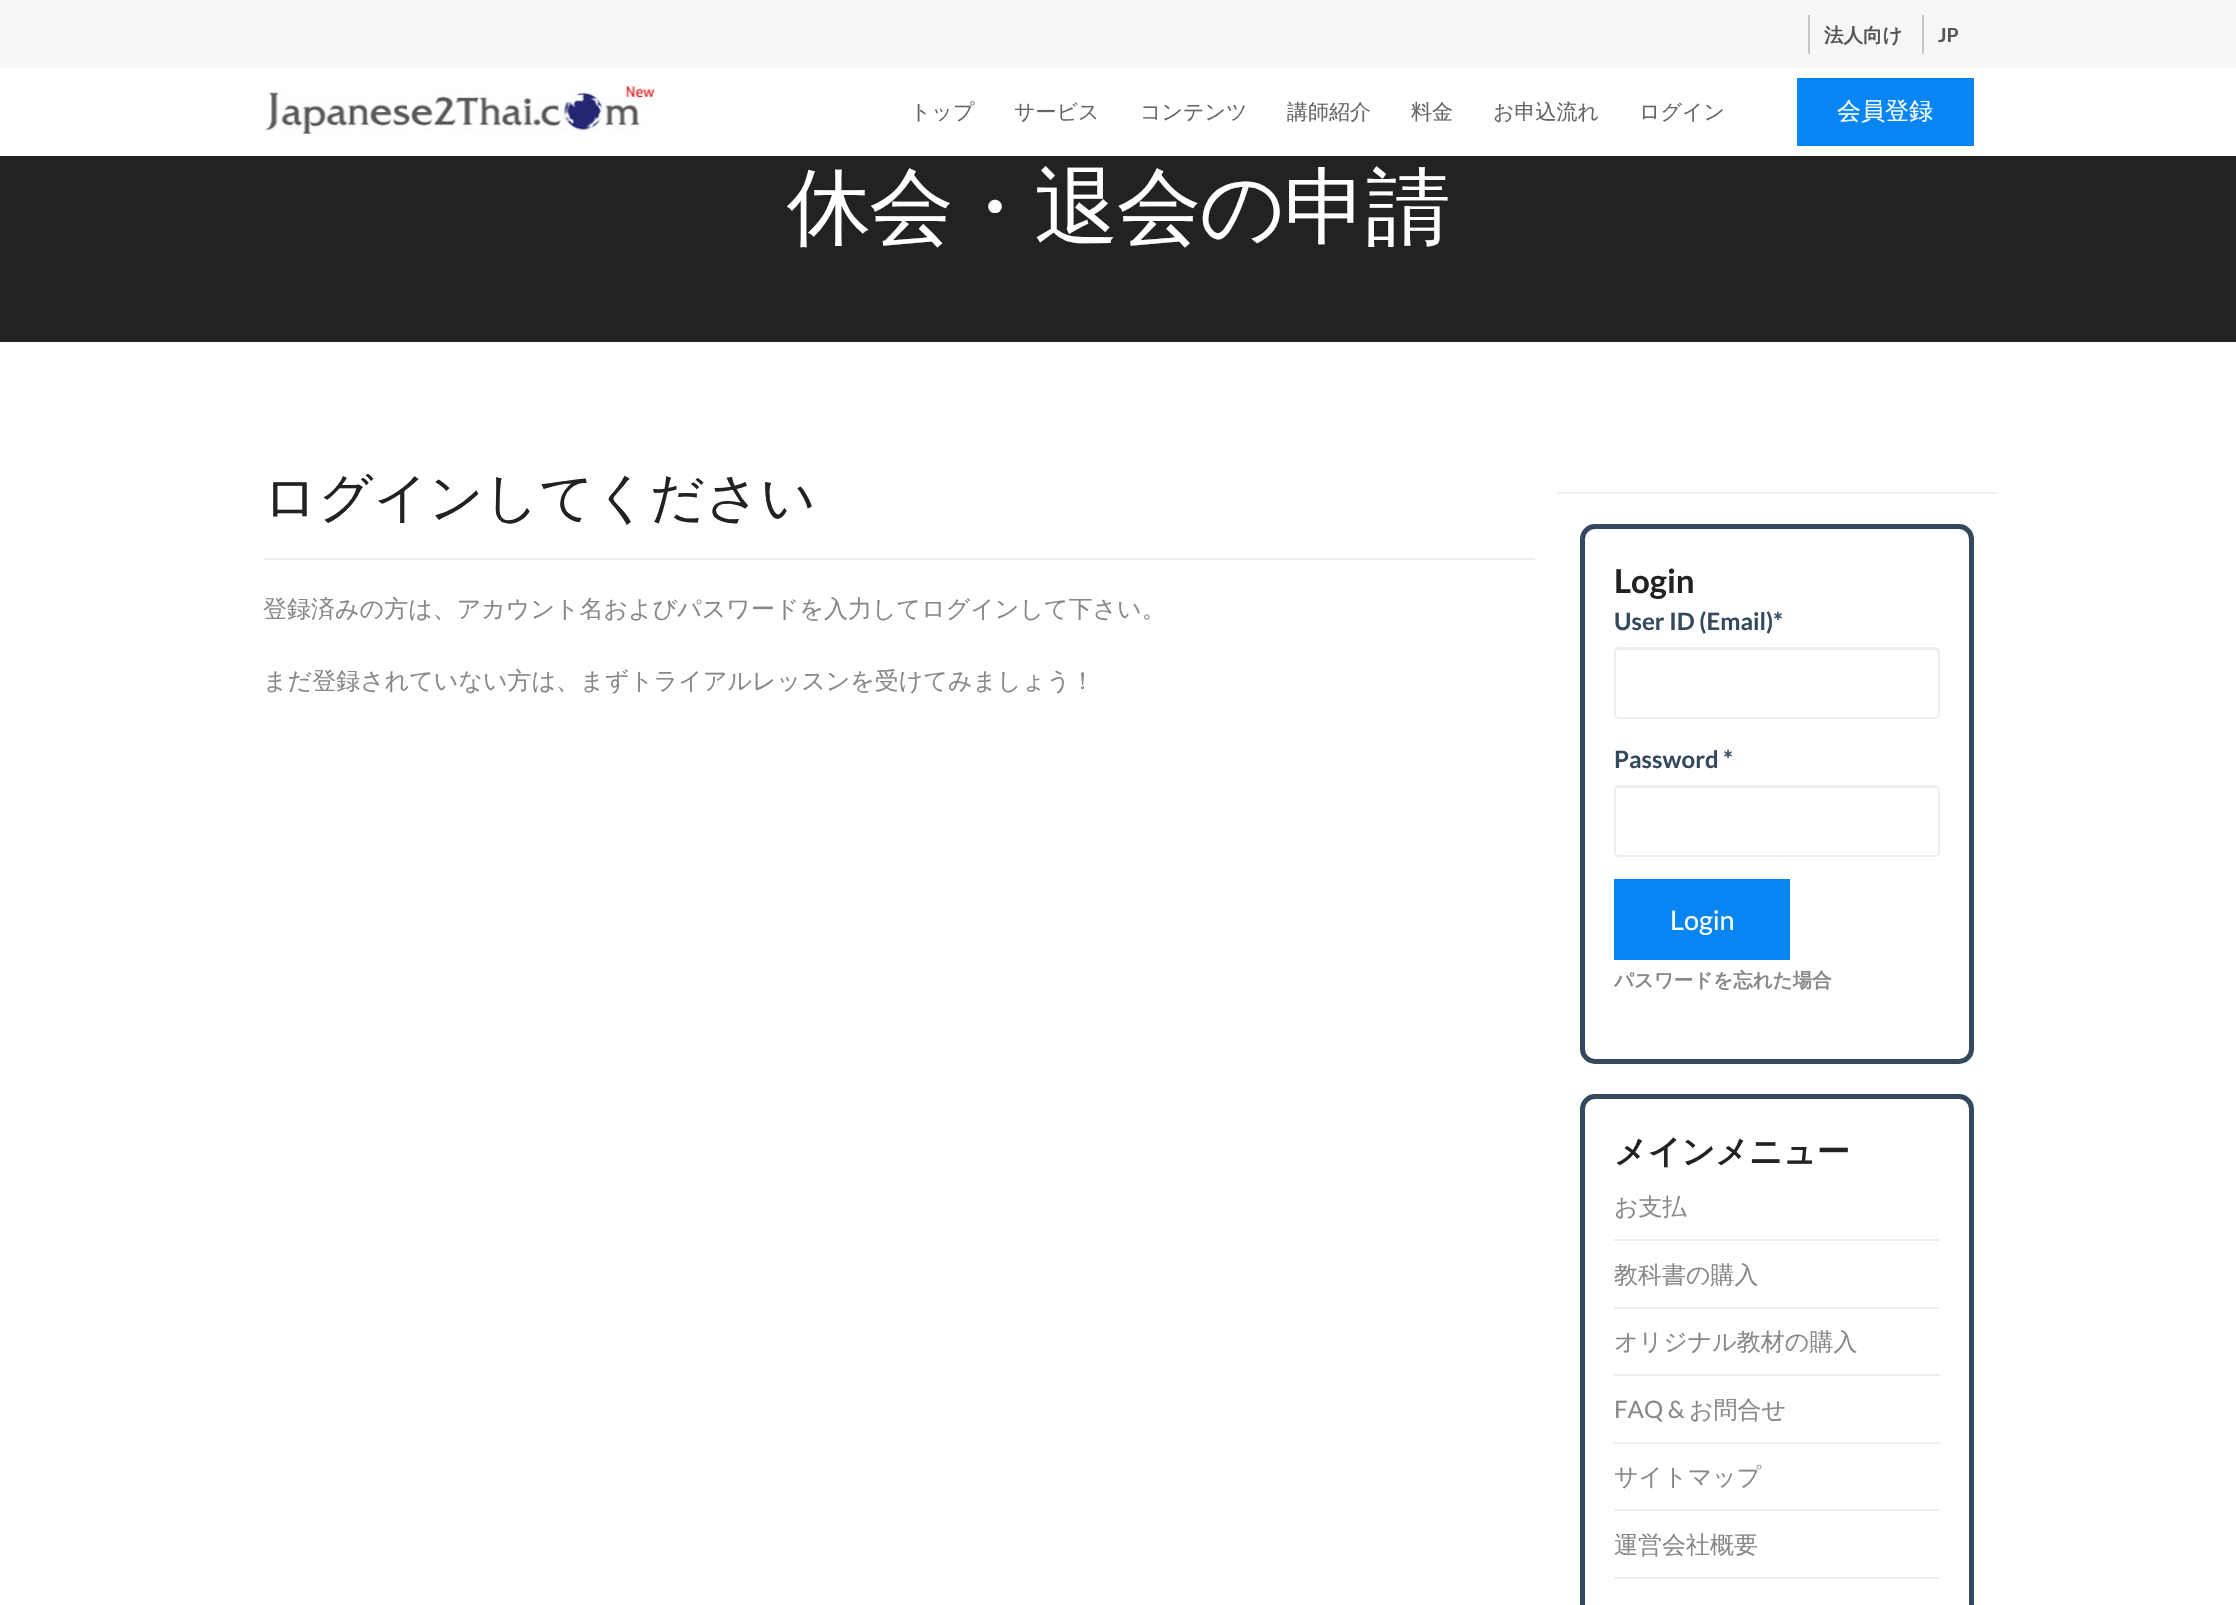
void draw(SkCanvas* canvas) {
	SkPaint fill;
	fill.setAntiAlias(true);
	auto makeFont = [&](const char* family, int weight, float size, bool italic = false) {
		SkFontStyle style(weight, SkFontStyle::kNormal_Width,
			italic ? SkFontStyle::kItalic_Slant : SkFontStyle::kUpright_Slant);
		SkFont result(fontMgr->matchFamilyStyle(family, style), size);
		result.setSubpixel(true);
		return result;
	};
	auto text = [&](const char* s, float x, float y, const SkFont& font) {
		canvas->drawString(s, x, y, font, fill);
	};
	auto spacedText = [&](const char* s, float x, float y, const SkFont& font, const SkPaint& ink, float letter, float word) {
		std::vector<SkGlyphID> glyphs(font.countText(s, strlen(s), SkTextEncoding::kUTF8));
		std::vector<float> xs(glyphs.size());
		font.textToGlyphs(s, strlen(s), SkTextEncoding::kUTF8, glyphs);
		font.getXPos(glyphs, xs, x);
		float extra = 0;
		for (size_t i = 0; i < glyphs.size(); i++) {
			xs[i] += extra;
			extra += letter + word * (glyphs[i] == font.unicharToGlyph(' '));
		}
		canvas->drawTextBlob(SkTextBlob::MakeFromPosHGlyphs(glyphs, xs, y, font), 0, 0, ink);
	};
	auto box = [&](float l, float t, float r, float b) {
		canvas->drawRect(SkRect::MakeLTRB(l, t, r, b), fill);
	};
	auto picture = [&](const char* path, float l, float t, float r, float b) {
		auto image = SkImages::DeferredFromEncodedData(SkData::MakeFromFileName(path));
		canvas->drawImageRect(image, SkRect::MakeLTRB(l, t, r, b), SkSamplingOptions());
	};
	canvas->clear(0xFF222222);
	fill.setColor(0xFFF7F7F7);
	box(0, 0, 2236, 68);
	fill.setColor(0xFFC7C7C7);
	box(1808, 15, 1810, 54);
	box(1922, 15, 1924, 54);
	fill.setColor(0xFFFFFFFF);
	box(0, 68, 2236, 156);
	picture("image0.png", 265, 85, 655, 134);
	fill.setColor(0xFF0785F2);
	box(1797, 78, 1974, 146);
	fill.setColor(0xFFFFFFFF);
	box(0, 342, 2236, 1605);
	fill.setColor(0xFFEEEEEE);
	box(264, 558, 1535, 560);
	box(1557, 492, 1997, 494);
	fill.setStyle(SkPaint::kStroke_Style);
	fill.setStrokeWidth(5);
	fill.setColor(0xFF34495E);
	canvas->drawRoundRect(SkRect::MakeLTRB(1582.5f, 526.5f, 1971.5f, 1061.5f), 12.5f, 12.5f, fill);
	fill.setStyle(SkPaint::kFill_Style);
	fill.setColor(0xFFECECEC);
	canvas->drawPath(SkPathBuilder().moveTo(1618, 650).lineTo(1935, 650).cubicTo(1937, 650, 1938, 651, 1938, 652).cubicTo(1938, 650, 1937, 648, 1935, 648).lineTo(1619, 648).cubicTo(1617, 648, 1616, 650, 1616, 652).cubicTo(1616, 651, 1617, 650, 1618, 650).close().detach(), fill);
	fill.setStyle(SkPaint::kStroke_Style);
	fill.setStrokeWidth(2);
	fill.setColor(0xFFEEEEEE);
	canvas->drawRoundRect(SkRect::MakeLTRB(1615, 648, 1939, 718), 4, 4, fill);
	fill.setStyle(SkPaint::kFill_Style);
	fill.setColor(0xFFECECEC);
	canvas->drawPath(SkPathBuilder().moveTo(1618, 788).lineTo(1935, 788).cubicTo(1937, 788, 1938, 789, 1938, 790).cubicTo(1938, 788, 1937, 786, 1935, 786).lineTo(1619, 786).cubicTo(1617, 786, 1616, 788, 1616, 790).cubicTo(1616, 789, 1617, 788, 1618, 788).close().detach(), fill);
	fill.setStyle(SkPaint::kStroke_Style);
	fill.setColor(0xFFEEEEEE);
	canvas->drawRoundRect(SkRect::MakeLTRB(1615, 786, 1939, 856), 4, 4, fill);
	fill.setStyle(SkPaint::kFill_Style);
	fill.setColor(0xFF0785F2);
	box(1614, 879, 1790, 960);
	fill.setStyle(SkPaint::kStroke_Style);
	fill.setStrokeWidth(5);
	fill.setColor(0xFF34495E);
	canvas->drawRoundRect(SkRect::MakeLTRB(1582.5f, 1096.5f, 1971.5f, 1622.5f), 12.5f, 12.5f, fill);
	fill.setStyle(SkPaint::kFill_Style);
	fill.setColor(0xFFEEEEEE);
	box(1614, 1239, 1940, 1241);
	box(1614, 1307, 1940, 1309);
	box(1614, 1374, 1940, 1376);
	box(1614, 1442, 1940, 1444);
	box(1614, 1509, 1940, 1511);
	box(1614, 1577, 1940, 1579);
	auto font1 = makeFont("WenQuanYi Zen Hei", 700, 19.5f);
	fill.setColor(0xFF565656);
	text("法人向け", 1824, 42, font1);
	auto font2 = makeFont("Lato", 700, 19.5f);
	text("JP", 1938, 42, font2);
	auto font3 = makeFont("WenQuanYi Zen Hei", 500, 21);
	fill.setColor(0xFF666666);
	text("トップ", 910, 119, font3);
	text("サービス", 1014, 119, font3);
	text("コンテンツ", 1140, 119, font3);
	text("講師紹介", 1287, 119, font3);
	text("料金", 1411, 119, font3);
	text("お申込流れ", 1493, 119, font3);
	text("ログイン", 1639, 119, font3);
	auto font4 = makeFont("WenQuanYi Zen Hei", 500, 24);
	fill.setColor(0xFFFFFFFF);
	text("会員登録", 1837, 119, font4);
	auto font5 = makeFont("WenQuanYi Zen Hei", 500, 84);
	spacedText("休会・退会の申請", 787, 236, font5, fill, -1.5f, 0);
	auto font6 = makeFont("WenQuanYi Zen Hei", 500, 54);
	fill.setColor(0xFF222222);
	text("ログインしてください", 263, 516, font6);
	fill.setColor(0xFF888888);
	text("登録済みの方は、アカウント名およびパスワードを入力してログインして下さい。", 263, 617, font4);
	text("まだ登録されていない方は、まずトライアルレッスンを受けてみましょう！", 263, 689, font4);
	auto font7 = makeFont("Lato", 700, 33);
	fill.setColor(0xFF222222);
	text("Login", 1614, 593, font7);
	auto font8 = makeFont("Lato", 700, 24);
	fill.setColor(0xFF34495E);
	text("User ID (Email)*", 1614, 630, font8);
	text("Password *", 1614, 768, font8);
	auto font9 = makeFont("Lato", 400, 27);
	fill.setColor(0xFFFFFFFF);
	text("Login", 1670, 930, font9);
	fill.setColor(0xFF888888);
	text("パスワードを忘れた場合", 1614, 987, font1);
	auto font10 = makeFont("WenQuanYi Zen Hei", 700, 33);
	fill.setColor(0xFF222222);
	text("メインメニュー", 1614, 1163, font10);
	fill.setColor(0xFF888888);
	text("お支払", 1614, 1215, font4);
	text("教科書の購入", 1614, 1283, font4);
	text("オリジナル教材の購入", 1614, 1350, font4);
	auto font11 = makeFont("Lato", 400, 24);
	text("FAQ &", 1614, 1418, font11);
	text("お問合せ", 1689, 1418, font4);
	text("サイトマップ", 1614, 1485, font4);
	text("運営会社概要", 1614, 1553, font4);
}
